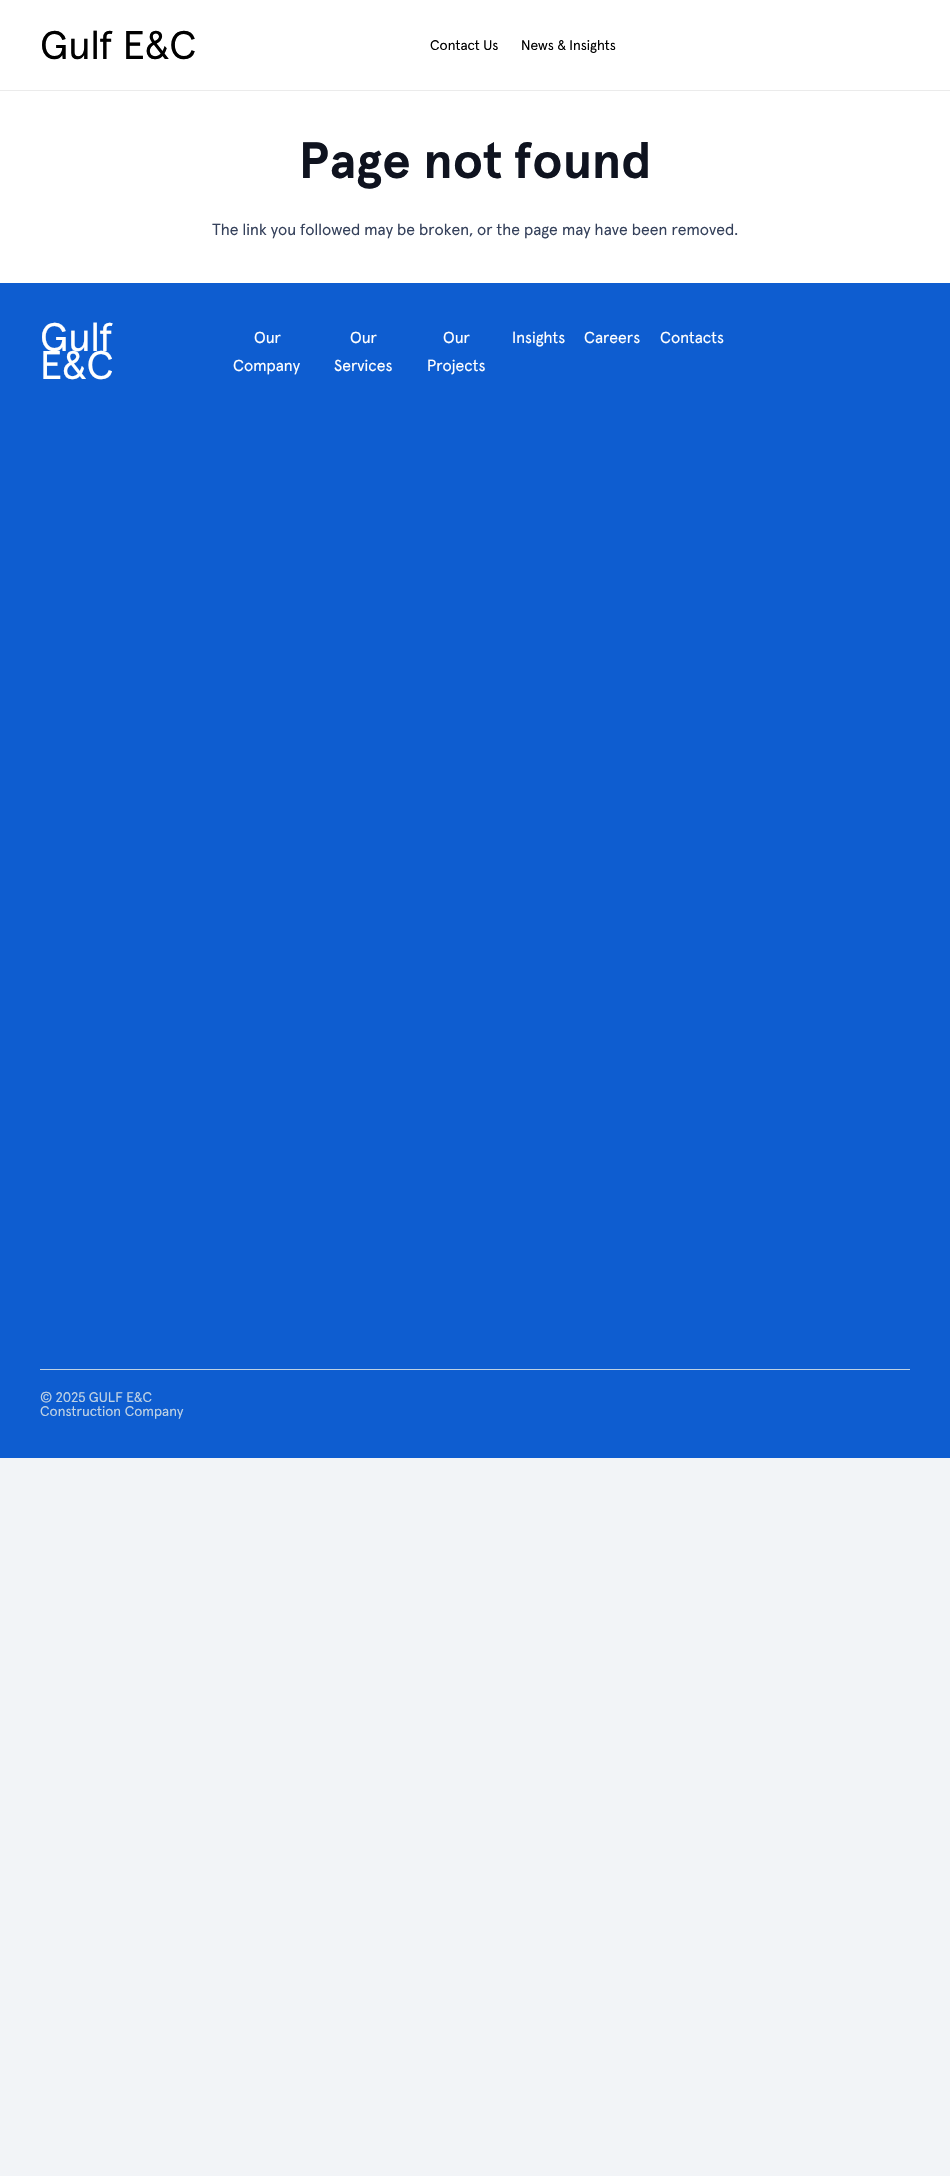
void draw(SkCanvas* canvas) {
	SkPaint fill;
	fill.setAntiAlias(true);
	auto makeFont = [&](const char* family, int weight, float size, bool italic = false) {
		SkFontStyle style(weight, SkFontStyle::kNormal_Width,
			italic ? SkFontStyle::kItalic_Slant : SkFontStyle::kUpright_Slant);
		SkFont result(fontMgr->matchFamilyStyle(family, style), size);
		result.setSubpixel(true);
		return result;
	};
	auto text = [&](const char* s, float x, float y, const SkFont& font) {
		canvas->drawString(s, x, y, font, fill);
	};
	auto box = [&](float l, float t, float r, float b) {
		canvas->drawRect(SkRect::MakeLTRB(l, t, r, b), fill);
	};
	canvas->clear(0xFFF2F4F7);
	fill.setColor(0xFFFFFFFF);
	box(0, 0, 950, 283);
	fill.setColor(0xFFEBEBEB);
	box(0, 90, 950, 91);
	fill.setColor(0xFF0E5DD0);
	box(0, 283, 950, 1458);
	fill.setColor(0xFFBFD2E4);
	box(40, 1369, 910, 1370);
	auto font1 = makeFont("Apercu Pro", 400, 40);
	fill.setColor(0xFF000000);
	text("Gulf E&C", 40, 59, font1);
	auto font2 = makeFont("Apercu Pro", 400, 14);
	text("Contact Us", 430, 50, font2);
	text("News & Insights", 521, 50, font2);
	auto font3 = makeFont("Apercu Pro", 700, 51);
	fill.setColor(0xFF0F131F);
	text("Page not found", 299, 178, font3);
	auto font4 = makeFont("Apercu Pro", 400, 16);
	fill.setColor(0xFF35415B);
	text("The link you followed may be broken, or the page may have been removed.", 212, 235, font4);
	fill.setColor(0xFFFFFFFF);
	text("Gulf", 40, 351, font1);
	text("E&C", 40, 379, font1);
	text("Our", 254, 343, font4);
	text("Company", 233, 371, font4);
	text("Our", 350, 343, font4);
	text("Services", 334, 371, font4);
	text("Our", 443, 343, font4);
	text("Projects", 427, 371, font4);
	text("Insights", 512, 343, font4);
	text("Careers", 584, 343, font4);
	text("Contacts", 660, 343, font4);
	fill.setColor(0xFFBFD2E4);
	text("© 2025 GULF E&C", 40, 1402, font2);
	text("Construction Company", 40, 1416, font2);
}
